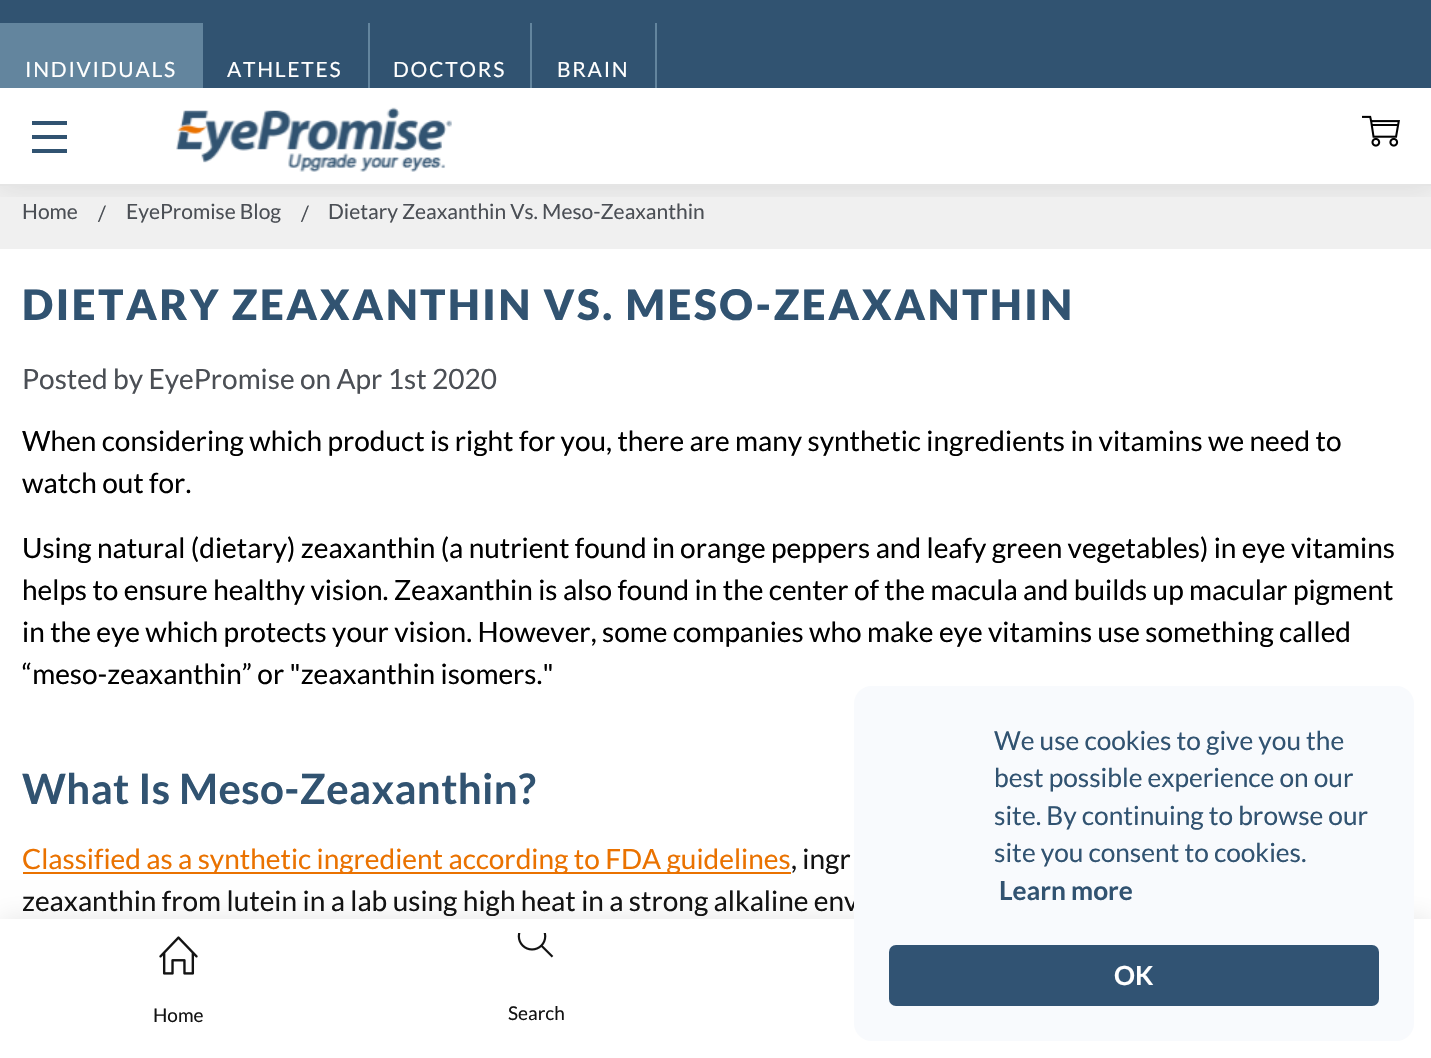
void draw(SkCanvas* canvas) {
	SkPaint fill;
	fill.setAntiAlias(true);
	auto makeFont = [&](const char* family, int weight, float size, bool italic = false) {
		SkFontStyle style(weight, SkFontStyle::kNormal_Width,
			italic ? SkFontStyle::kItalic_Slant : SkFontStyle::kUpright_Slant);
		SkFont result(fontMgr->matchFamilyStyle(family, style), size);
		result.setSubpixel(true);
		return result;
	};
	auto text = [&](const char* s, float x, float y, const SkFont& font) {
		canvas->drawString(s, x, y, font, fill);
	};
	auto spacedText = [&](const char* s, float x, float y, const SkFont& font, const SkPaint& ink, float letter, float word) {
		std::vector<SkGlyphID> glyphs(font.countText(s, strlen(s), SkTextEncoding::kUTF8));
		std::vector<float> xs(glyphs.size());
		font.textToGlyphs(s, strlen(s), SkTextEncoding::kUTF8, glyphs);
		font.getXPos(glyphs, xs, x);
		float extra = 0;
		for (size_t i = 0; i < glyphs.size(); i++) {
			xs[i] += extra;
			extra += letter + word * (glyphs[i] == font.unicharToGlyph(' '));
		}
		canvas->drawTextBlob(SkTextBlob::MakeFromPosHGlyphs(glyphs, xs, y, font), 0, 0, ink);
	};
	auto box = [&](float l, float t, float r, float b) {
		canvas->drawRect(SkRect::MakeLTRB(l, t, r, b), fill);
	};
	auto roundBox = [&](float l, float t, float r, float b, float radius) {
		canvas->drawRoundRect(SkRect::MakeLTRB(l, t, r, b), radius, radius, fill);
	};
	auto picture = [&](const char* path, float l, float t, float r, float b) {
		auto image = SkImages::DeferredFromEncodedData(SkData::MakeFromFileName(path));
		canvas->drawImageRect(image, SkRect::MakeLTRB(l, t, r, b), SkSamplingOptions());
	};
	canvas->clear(0xFFFFFFFF);
	fill.setColor(0xFFF0F0F0);
	box(0, 186, 1431, 249);
	canvas->save();
	canvas->clipRect(SkRect::MakeLTRB(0, 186, 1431, 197));
	fill.setColor(0x1A000000);
	fill.setMaskFilter(SkMaskFilter::MakeBlur(kNormal_SkBlurStyle, 13));
	canvas->drawRect(SkRect::MakeLTRB(0, 88, 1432, 186), fill);
	fill.setMaskFilter(nullptr);
	canvas->restore();
	fill.setColor(0xFFE5E5E5);
	box(0, 184, 1431, 186);
	fill.setColor(0xFF315371);
	box(0, 0, 1431, 88);
	fill.setColor(0xFF63859E);
	box(0, 23, 203, 88);
	box(368, 23, 370, 88);
	box(530, 23, 532, 88);
	box(655, 23, 657, 88);
	picture("image0.png", 1362, 115, 1400, 147);
	picture("image1.png", 176, 107, 452, 172);
	fill.setColor(0xFF315371);
	box(32, 135, 67, 139);
	box(32, 121, 67, 125);
	box(32, 149, 67, 153);
	fill.setColor(0xFFEA7200);
	box(23, 872, 791, 874);
	fill.setColor(0x1A000000);
	fill.setMaskFilter(SkMaskFilter::MakeBlur(kNormal_SkBlurStyle, 13));
	canvas->drawRect(SkRect::MakeLTRB(0, 919, 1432, 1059), fill);
	fill.setMaskFilter(nullptr);
	fill.setColor(0xFFFFFFFF);
	box(0, 919, 1431, 1058);
	picture("image2.png", 159, 936, 198, 975);
	picture("image3.png", 517, 933, 554, 958);
	auto font1 = makeFont("Lato", 400, 21);
	spacedText("INDIVIDUALS", 25, 77, font1, fill, 1.75f, 0);
	spacedText("ATHLETES", 227, 77, font1, fill, 1.75f, 0);
	spacedText("DOCTORS", 393, 77, font1, fill, 1.75f, 0);
	spacedText("BRAIN", 557, 77, font1, fill, 1.75f, 0);
	fill.setColor(0xFF4B4F55);
	text("Home", 22, 219, font1);
	text("/", 98, 221, font1);
	text("EyePromise Blog", 126, 219, font1);
	text("/", 301, 221, font1);
	text("Dietary Zeaxanthin Vs. Meso-Zeaxanthin", 328, 219, font1);
	auto font2 = makeFont("Lato", 900, 42);
	fill.setColor(0xFF315371);
	spacedText("DIETARY ZEAXANTHIN VS. MESO-ZEAXANTHIN", 22, 320, font2, fill, 2.6f, 0);
	auto font3 = makeFont("Lato", 400, 28);
	fill.setColor(0xFF4B4F55);
	text("Posted by EyePromise on Apr 1st 2020", 22, 389, font3);
	fill.setColor(0xFF000000);
	text("When considering which product is right for you, there are many synthetic ingredients in vitamins we need to", 22, 451, font3);
	text("watch out for.", 22, 493, font3);
	text("Using natural (dietary) zeaxanthin (a nutrient found in orange peppers and leafy green vegetables) in eye vitamins", 22, 558, font3);
	text("helps to ensure healthy vision. Zeaxanthin is also found in the center of the macula and builds up macular pigment", 22, 600, font3);
	text("in the eye which protects your vision. However, some companies who make eye vitamins use something called", 22, 642, font3);
	text("“meso-zeaxanthin” or \"zeaxanthin isomers.\"", 22, 684, font3);
	auto font4 = makeFont("Lato", 700, 42);
	fill.setColor(0xFF315371);
	spacedText("What Is Meso-Zeaxanthin?", 22, 804, font4, fill, 0.4f, 0);
	fill.setColor(0xFFEA7200);
	text("Classified as a synthetic ingredient according to FDA guidelines", 22, 869, font3);
	fill.setColor(0xFF131313);
	text(", ingr", 791, 869, font3);
	text("zeaxanthin from lutein in a lab using high heat in a strong alkaline env", 22, 911, font3);
	fill.setColor(0xFFF8FAFD);
	roundBox(854, 686, 1414, 1041, 18);
	auto font5 = makeFont("Lato", 400, 26.25f);
	fill.setColor(0xFF315371);
	text("We use cookies to give you the", 994, 750, font5);
	text("best possible experience on our", 994, 787, font5);
	text("site. By continuing to browse our", 994, 825, font5);
	text("site you consent to cookies.", 994, 862, font5);
	auto font6 = makeFont("Lato", 700, 26.25f);
	text("Learn more", 999, 900, font6);
	fill.setColor(0xFF315373);
	roundBox(889, 945, 1379, 1006, 7);
	fill.setColor(0xFFFFFFFF);
	text("OK", 1114, 985, font6);
	auto font7 = makeFont("Lato", 400, 19);
	fill.setColor(0xFF131313);
	text("Home", 153, 1022, font7);
	text("Search", 508, 1020, font7);
}
